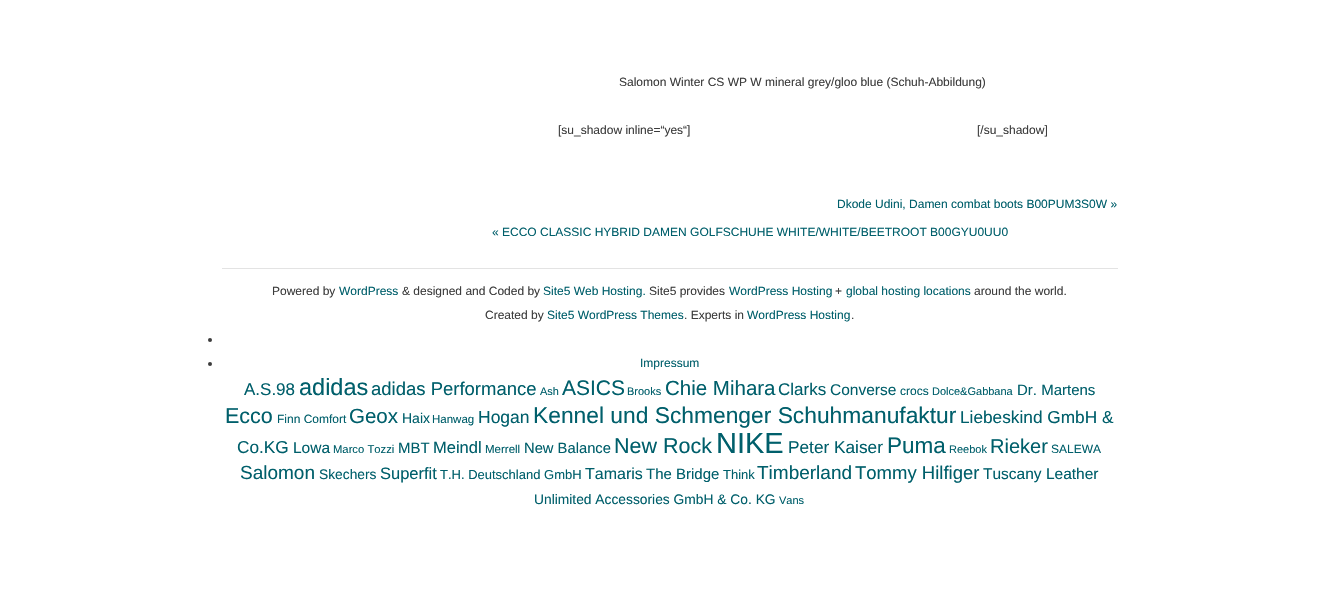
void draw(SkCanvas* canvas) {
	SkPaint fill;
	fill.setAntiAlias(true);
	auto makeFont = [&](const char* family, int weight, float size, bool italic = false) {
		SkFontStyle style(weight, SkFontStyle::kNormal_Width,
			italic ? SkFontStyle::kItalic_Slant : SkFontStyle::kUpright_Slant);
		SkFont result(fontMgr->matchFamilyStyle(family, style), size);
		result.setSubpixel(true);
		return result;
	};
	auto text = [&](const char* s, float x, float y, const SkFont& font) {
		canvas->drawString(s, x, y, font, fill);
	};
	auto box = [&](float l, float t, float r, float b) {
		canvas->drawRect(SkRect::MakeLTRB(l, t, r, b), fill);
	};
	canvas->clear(0xFFFFFFFF);
	fill.setColor(0xFFE3E3E3);
	box(222, 268, 1118, 269);
	fill.setColor(0xFF3C3C3C);
	canvas->drawCircle(210, 340, 2, fill);
	canvas->drawCircle(210, 364, 2, fill);
	auto font1 = makeFont("Liberation Sans", 400, 12);
	text("Salomon Winter CS WP W mineral grey/gloo blue (Schuh-Abbildung)", 619, 86, font1);
	text("[su_shadow inline=“yes“]", 558, 134, font1);
	text("[/su_shadow]", 977, 134, font1);
	fill.setColor(0xFF005F6B);
	text("Dkode Udini, Damen combat boots B00PUM3S0W »", 837, 208, font1);
	text("« ECCO CLASSIC HYBRID DAMEN GOLFSCHUHE WHITE/WHITE/BEETROOT B00GYU0UU0", 492, 236, font1);
	fill.setColor(0xFF3C3C3C);
	text("Powered by", 272, 295, font1);
	fill.setColor(0xFF005F6B);
	text("WordPress", 339, 295, font1);
	fill.setColor(0xFF3C3C3C);
	text("& designed and Coded by", 402, 295, font1);
	fill.setColor(0xFF005F6B);
	text("Site5 Web Hosting.", 543, 295, font1);
	fill.setColor(0xFF3C3C3C);
	text("Site5 provides", 649, 295, font1);
	fill.setColor(0xFF005F6B);
	text("WordPress Hosting", 729, 295, font1);
	fill.setColor(0xFF3C3C3C);
	text("+", 835, 295, font1);
	fill.setColor(0xFF005F6B);
	text("global hosting locations", 846, 295, font1);
	fill.setColor(0xFF3C3C3C);
	text("around the world.", 974, 295, font1);
	text("Created by", 485, 319, font1);
	fill.setColor(0xFF005F6B);
	text("Site5 WordPress Themes", 547, 319, font1);
	fill.setColor(0xFF3C3C3C);
	text(". Experts in", 684, 319, font1);
	fill.setColor(0xFF005F6B);
	text("WordPress Hosting", 747, 319, font1);
	fill.setColor(0xFF3C3C3C);
	text(".", 851, 319, font1);
	fill.setColor(0xFF005F6B);
	text("Impressum", 640, 367, font1);
	auto font2 = makeFont("Liberation Sans", 400, 17);
	text("A.S.98", 244, 395, font2);
	auto font3 = makeFont("Liberation Sans", 400, 23.5f);
	text("adidas", 299, 395, font3);
	auto font4 = makeFont("Liberation Sans", 400, 18.5f);
	text("adidas Performance", 371, 395, font4);
	auto font5 = makeFont("Liberation Sans", 400, 11);
	text("Ash", 540, 395, font5);
	auto font6 = makeFont("Liberation Sans", 400, 21);
	text("ASICS", 562, 395, font6);
	text("Brooks", 627, 395, font5);
	auto font7 = makeFont("Liberation Sans", 400, 20.5f);
	text("Chie Mihara", 665, 395, font7);
	text("Clarks", 778, 395, font2);
	auto font8 = makeFont("Liberation Sans", 400, 15.5f);
	text("Converse", 830, 395, font8);
	text("crocs", 900, 395, font1);
	text("Dolce&Gabbana", 932, 395, font5);
	auto font9 = makeFont("Liberation Sans", 400, 15);
	text("Dr. Martens", 1017, 395, font9);
	auto font10 = makeFont("Liberation Sans", 400, 21.5f);
	text("Ecco", 225, 423, font10);
	text("Finn Comfort", 277, 423, font1);
	text("Geox", 349, 423, font7);
	auto font11 = makeFont("Liberation Sans", 400, 14);
	text("Haix", 402, 423, font11);
	auto font12 = makeFont("Liberation Sans", 400, 11.5f);
	text("Hanwag", 432, 423, font12);
	auto font13 = makeFont("Liberation Sans", 400, 17.5f);
	text("Hogan", 478, 423, font13);
	auto font14 = makeFont("Liberation Sans", 400, 22.8f);
	text("Kennel und Schmenger Schuhmanufaktur", 533, 423, font14);
	auto font15 = makeFont("Liberation Sans", 400, 17.25f);
	text("Liebeskind GmbH &", 960, 423, font15);
	text("Co.KG", 237, 453, font15);
	text("Lowa", 293, 453, font8);
	auto font16 = makeFont("Liberation Sans", 400, 11.25f);
	text("Marco Tozzi", 333, 453, font16);
	text("MBT", 398, 453, font9);
	auto font17 = makeFont("Liberation Sans", 400, 16.5f);
	text("Meindl", 433, 453, font17);
	text("Merrell", 485, 453, font12);
	auto font18 = makeFont("Liberation Sans", 400, 14.75f);
	text("New Balance", 524, 453, font18);
	text("New Rock", 614, 453, font10);
	auto font19 = makeFont("Liberation Sans", 400, 29);
	text("NIKE", 716, 453, font19);
	text("Peter Kaiser", 788, 453, font15);
	auto font20 = makeFont("Liberation Sans", 400, 22.5f);
	text("Puma", 887, 453, font20);
	text("Reebok", 949, 453, font5);
	auto font21 = makeFont("Liberation Sans", 400, 20);
	text("Rieker", 990, 453, font21);
	text("SALEWA", 1051, 453, font1);
	auto font22 = makeFont("Liberation Sans", 400, 19);
	text("Salomon", 240, 479, font22);
	auto font23 = makeFont("Liberation Sans", 400, 13.8f);
	text("Skechers", 319, 479, font23);
	text("Superfit", 380, 479, font17);
	auto font24 = makeFont("Liberation Sans", 400, 13);
	text("T.H. Deutschland GmbH", 440, 479, font24);
	auto font25 = makeFont("Liberation Sans", 400, 16);
	text("Tamaris", 585, 479, font25);
	text("The Bridge", 646, 479, font9);
	text("Think", 723, 479, font24);
	text("Timberland", 757, 479, font22);
	text("Tommy Hilfiger", 855, 479, font4);
	text("Tuscany Leather", 983, 479, font8);
	text("Unlimited Accessories GmbH & Co. KG", 534, 504, font23);
	text("Vans", 779, 504, font5);
}
